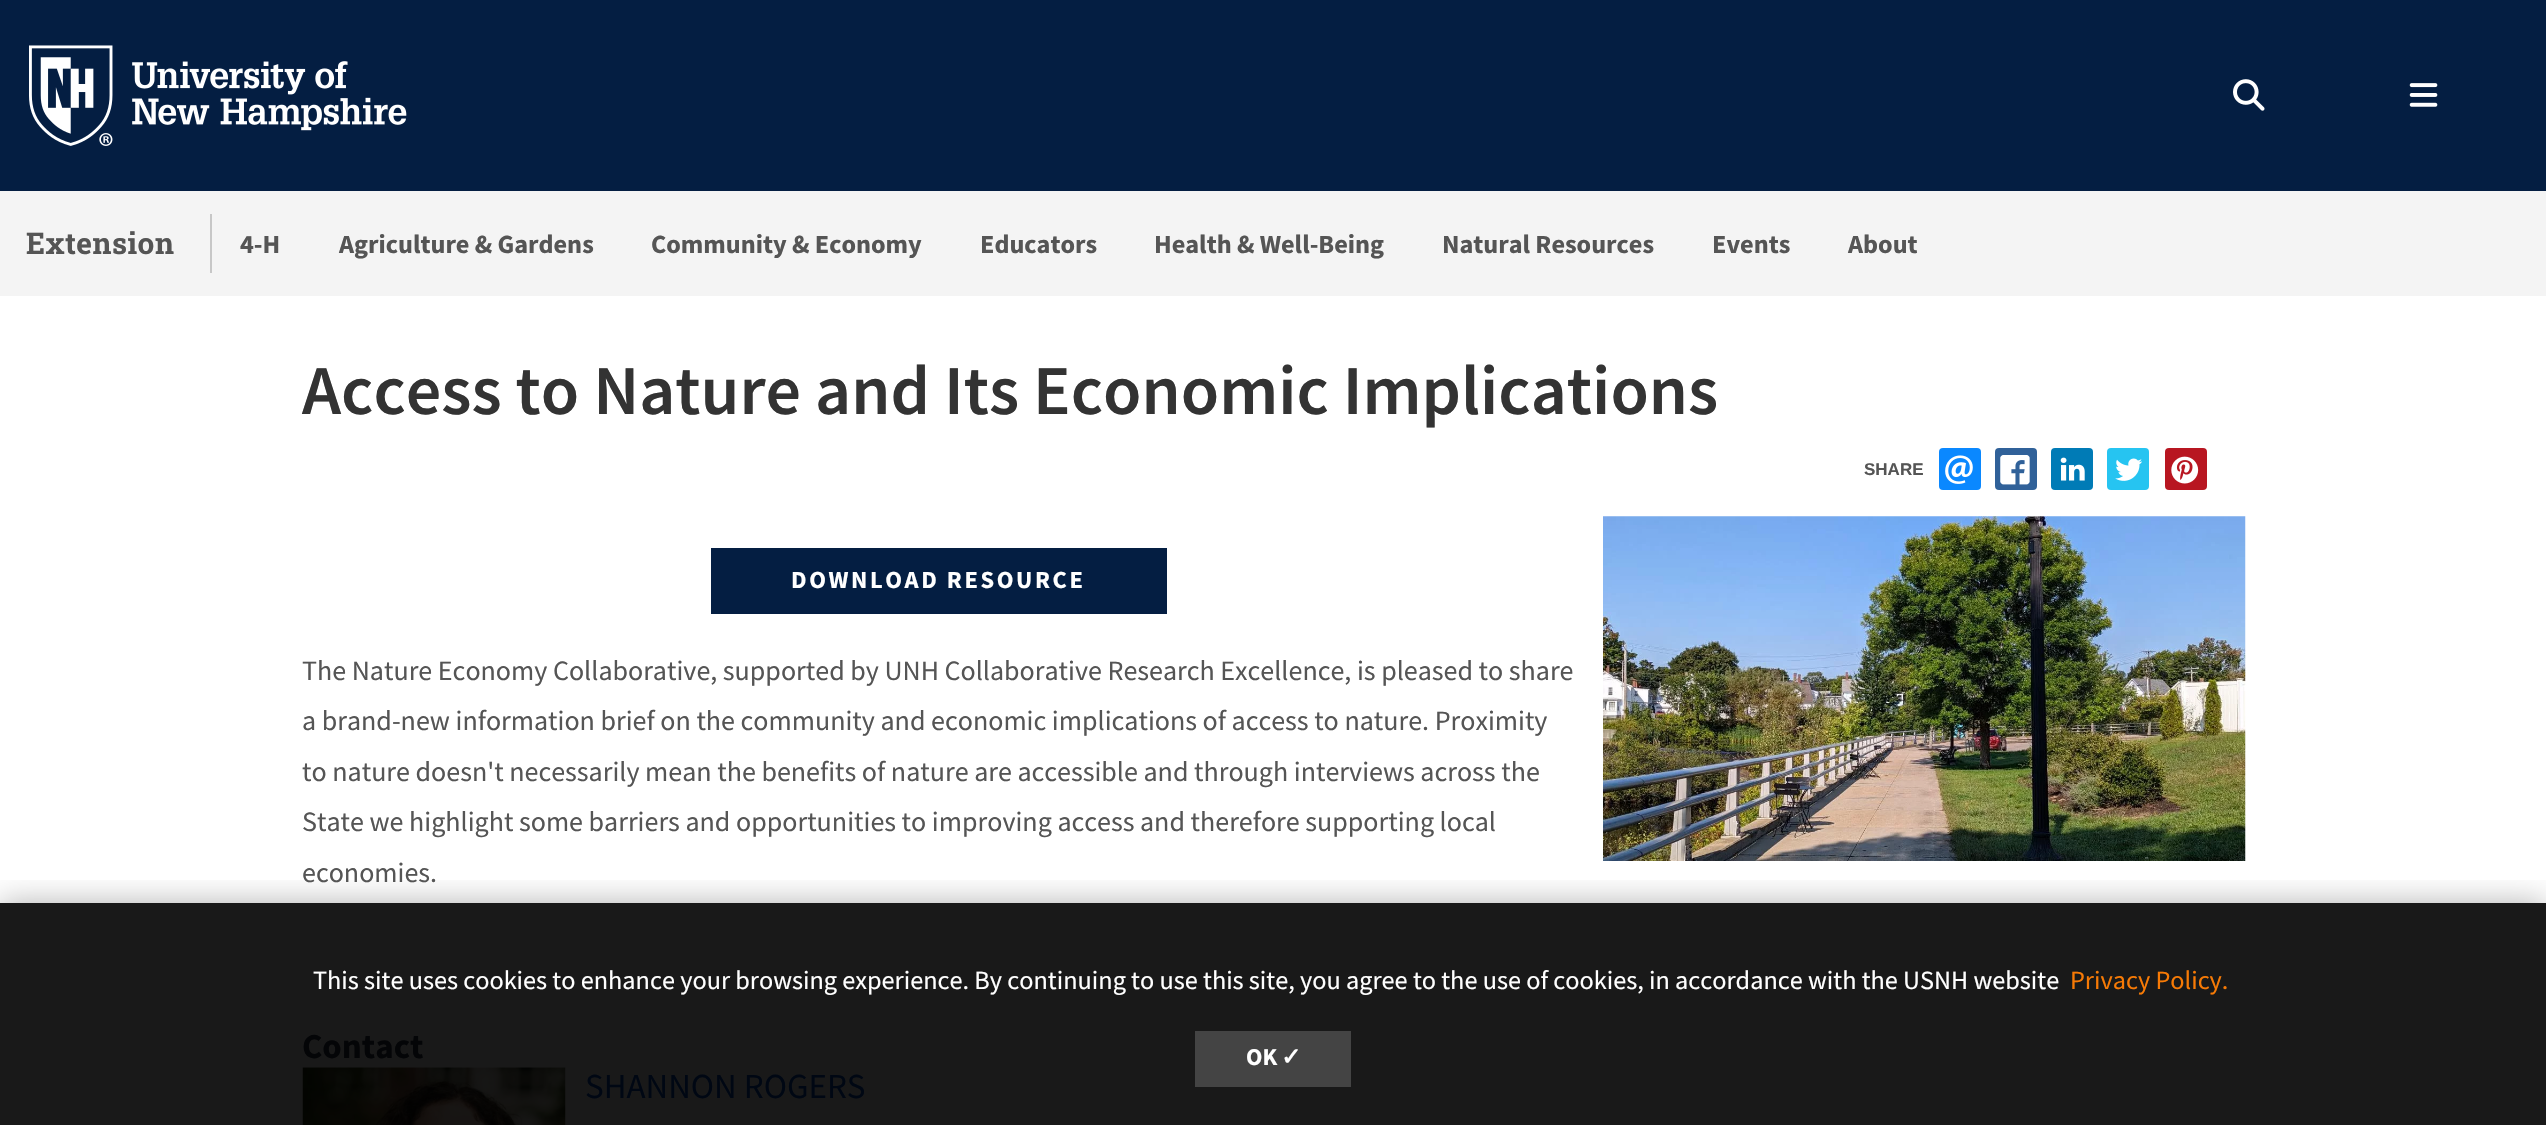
void draw(SkCanvas* canvas) {
	SkPaint fill;
	fill.setAntiAlias(true);
	auto makeFont = [&](const char* family, int weight, float size, bool italic = false) {
		SkFontStyle style(weight, SkFontStyle::kNormal_Width,
			italic ? SkFontStyle::kItalic_Slant : SkFontStyle::kUpright_Slant);
		SkFont result(fontMgr->matchFamilyStyle(family, style), size);
		result.setSubpixel(true);
		return result;
	};
	auto text = [&](const char* s, float x, float y, const SkFont& font) {
		canvas->drawString(s, x, y, font, fill);
	};
	auto spacedText = [&](const char* s, float x, float y, const SkFont& font, const SkPaint& ink, float letter, float word) {
		std::vector<SkGlyphID> glyphs(font.countText(s, strlen(s), SkTextEncoding::kUTF8));
		std::vector<float> xs(glyphs.size());
		font.textToGlyphs(s, strlen(s), SkTextEncoding::kUTF8, glyphs);
		font.getXPos(glyphs, xs, x);
		float extra = 0;
		for (size_t i = 0; i < glyphs.size(); i++) {
			xs[i] += extra;
			extra += letter + word * (glyphs[i] == font.unicharToGlyph(' '));
		}
		canvas->drawTextBlob(SkTextBlob::MakeFromPosHGlyphs(glyphs, xs, y, font), 0, 0, ink);
	};
	auto box = [&](float l, float t, float r, float b) {
		canvas->drawRect(SkRect::MakeLTRB(l, t, r, b), fill);
	};
	auto roundBox = [&](float l, float t, float r, float b, float radius) {
		canvas->drawRoundRect(SkRect::MakeLTRB(l, t, r, b), radius, radius, fill);
	};
	auto picture = [&](const char* path, float l, float t, float r, float b) {
		auto image = SkImages::DeferredFromEncodedData(SkData::MakeFromFileName(path));
		canvas->drawImageRect(image, SkRect::MakeLTRB(l, t, r, b), SkSamplingOptions());
	};
	canvas->clear(0xFFFFFFFF);
	fill.setColor(0xFF191919);
	box(0, 903, 2546, 1125);
	fill.setColor(0xFF041E42);
	box(0, 0, 2546, 191);
	picture("image0.png", 29, 45, 407, 146);
	picture("image1.png", 2233, 79, 2265, 111);
	picture("image2.png", 2409, 83, 2438, 107);
	fill.setColor(0xFFF4F4F4);
	box(0, 191, 2546, 296);
	fill.setColor(0xFFC7C7C7);
	box(210, 214, 212, 273);
	fill.setColor(0xFF0A88FF);
	roundBox(1939, 448, 1981, 490, 4);
	picture("image3.png", 1945, 455, 1973, 484);
	fill.setColor(0xFF306199);
	roundBox(1995, 448, 2037, 490, 4);
	picture("image4.png", 2000, 455, 2030, 485);
	fill.setColor(0xFF007BB6);
	roundBox(2051, 448, 2093, 490, 4);
	picture("image5.png", 2060, 457, 2085, 481);
	fill.setColor(0xFF26C4F1);
	roundBox(2107, 448, 2149, 490, 4);
	picture("image6.png", 2115, 458, 2142, 481);
	fill.setColor(0xFFB81621);
	roundBox(2165, 448, 2207, 490, 4);
	picture("image7.png", 2171, 456, 2199, 484);
	fill.setColor(0xFF041E42);
	box(711, 548, 1167, 614);
	picture("image8.png", 1603, 516, 2246, 861);
	picture("image9.png", 302, 1067, 566, 1125);
	canvas->save();
	canvas->clipRect(SkRect::MakeLTRB(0, 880, 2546, 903));
	fill.setColor(0x4D000000);
	fill.setMaskFilter(SkMaskFilter::MakeBlur(kNormal_SkBlurStyle, 15));
	canvas->drawRect(SkRect::MakeLTRB(0, 903, 2546, 1125), fill);
	fill.setMaskFilter(nullptr);
	canvas->restore();
	fill.setColor(0xFF444444);
	box(1195, 1031, 1351, 1087);
	auto font1 = makeFont("Roboto Slab", 700, 29.75f);
	fill.setColor(0xFF555555);
	spacedText("Extension", 26, 254, font1, fill, 0.5f, 0);
	auto font2 = makeFont("Source Sans Pro", 700, 26.25f);
	text("4-H", 240, 253, font2);
	text("Agriculture & Gardens", 339, 253, font2);
	text("Community & Economy", 651, 253, font2);
	text("Educators", 980, 253, font2);
	text("Health & Well-Being", 1154, 253, font2);
	text("Natural Resources", 1442, 253, font2);
	text("Events", 1712, 253, font2);
	text("About", 1848, 253, font2);
	auto font3 = makeFont("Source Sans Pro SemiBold", 600, 70);
	fill.setColor(0xFF333333);
	text("Access to Nature and Its Economic Implications", 302, 414, font3);
	auto font4 = makeFont("Liberation Sans", 700, 17);
	fill.setColor(0xFF555555);
	text("SHARE", 1864, 475, font4);
	auto font5 = makeFont("Source Sans Pro", 700, 24.5f);
	fill.setColor(0xFFFFFFFF);
	spacedText("DOWNLOAD RESOURCE", 791, 588, font5, fill, 2.6f, 0);
	auto font6 = makeFont("Source Sans Pro", 400, 28);
	fill.setColor(0xFF555555);
	text("The Nature Economy Collaborative, supported by UNH Collaborative Research Excellence, is pleased to share", 302, 680, font6);
	text("a brand-new information brief on the community and economic implications of access to nature. Proximity", 302, 730, font6);
	text("to nature doesn't necessarily mean the benefits of nature are accessible and through interviews across the", 302, 781, font6);
	text("State we highlight some barriers and opportunities to improving access and therefore supporting local", 302, 831, font6);
	text("economies.", 302, 882, font6);
	auto font7 = makeFont("Source Sans Pro", 700, 35);
	fill.setColor(0xFF040507);
	text("Contact", 302, 1058, font7);
	auto font8 = makeFont("Source Sans Pro", 400, 35);
	fill.setColor(0xFF000713);
	text("SHANNON ROGERS", 585, 1098, font8);
	auto font9 = makeFont("Source Sans Pro", 400, 26.25f);
	fill.setColor(0xFFFFFFFF);
	text("This site uses cookies to enhance your browsing experience. By continuing to use this site, you agree to the use of cookies, in accordance with the USNH website", 313, 989, font9);
	fill.setColor(0xFFF77A05);
	text("Privacy Policy.", 2070, 989, font9);
	auto font10 = makeFont("Source Sans Pro", 700, 24);
	fill.setColor(0xFFFFFFFF);
	text("OK", 1246, 1065, font10);
	auto font11 = makeFont("DejaVu Sans", 700, 24);
	text("✓", 1281, 1065, font11);
}
